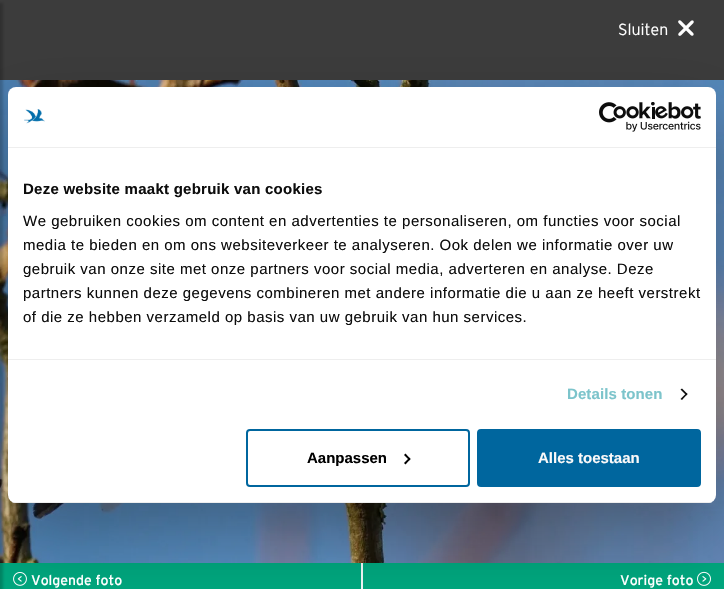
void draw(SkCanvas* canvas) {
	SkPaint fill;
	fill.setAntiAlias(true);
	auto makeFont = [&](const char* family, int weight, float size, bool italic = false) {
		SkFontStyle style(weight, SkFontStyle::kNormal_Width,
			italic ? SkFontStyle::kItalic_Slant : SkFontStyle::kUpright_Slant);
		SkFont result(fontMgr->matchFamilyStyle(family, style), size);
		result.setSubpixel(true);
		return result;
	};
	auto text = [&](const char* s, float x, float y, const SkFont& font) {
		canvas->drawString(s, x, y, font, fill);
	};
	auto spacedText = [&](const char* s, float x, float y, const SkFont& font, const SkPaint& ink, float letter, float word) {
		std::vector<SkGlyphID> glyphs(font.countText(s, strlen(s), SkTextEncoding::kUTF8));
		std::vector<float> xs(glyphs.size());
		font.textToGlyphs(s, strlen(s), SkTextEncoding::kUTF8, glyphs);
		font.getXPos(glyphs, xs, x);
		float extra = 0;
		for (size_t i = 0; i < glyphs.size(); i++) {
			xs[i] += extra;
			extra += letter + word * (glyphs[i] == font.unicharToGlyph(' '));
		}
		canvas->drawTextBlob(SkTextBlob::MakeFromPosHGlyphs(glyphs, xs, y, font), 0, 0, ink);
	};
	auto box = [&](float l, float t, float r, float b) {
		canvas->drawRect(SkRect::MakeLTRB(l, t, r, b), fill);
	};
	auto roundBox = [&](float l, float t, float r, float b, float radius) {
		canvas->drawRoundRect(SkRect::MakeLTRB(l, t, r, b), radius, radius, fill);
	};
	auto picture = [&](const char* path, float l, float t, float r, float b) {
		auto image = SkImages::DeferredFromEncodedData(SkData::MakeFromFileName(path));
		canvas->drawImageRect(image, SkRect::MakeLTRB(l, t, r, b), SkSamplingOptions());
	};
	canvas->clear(0xFF3C3C3C);
	picture("image1.png", 0, 80, 724, 563);
	fill.setColor(0xFF00A77E);
	box(0, 563, 361, 589);
	fill.setColor(0x33000000);
	fill.setMaskFilter(SkMaskFilter::MakeBlur(kNormal_SkBlurStyle, 1.5f));
	canvas->drawRect(SkRect::MakeLTRB(-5, 3, 3, 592), fill);
	fill.setMaskFilter(nullptr);
	picture("image0.png", 678, 20, 694, 36);
	fill.setColor(0xFFF0F8F8);
	box(361, 563, 363, 589);
	picture("image2.png", 13, 572, 27, 586);
	fill.setColor(0xFF00A77E);
	box(363, 563, 724, 589);
	picture("image3.png", 697, 571, 711, 586);
	fill.setColor(0x4D000000);
	fill.setMaskFilter(SkMaskFilter::MakeBlur(kNormal_SkBlurStyle, 34));
	canvas->drawRoundRect(SkRect::MakeLTRB(8, 119, 716, 535), 8, 8, fill);
	fill.setMaskFilter(nullptr);
	fill.setColor(0xFFFFFFFF);
	roundBox(8, 87, 716, 503, 8);
	fill.setColor(0xFFEEEEEE);
	box(8, 147, 716, 148);
	picture("image4.png", 24, 109, 45, 124);
	picture("image5.png", 599, 102, 701, 132);
	box(8, 359, 716, 360);
	fill.setColor(0xFF0D0D0D);
	canvas->drawPath(SkPathBuilder().moveTo(682, 388.5f).lineTo(687.5f, 394).lineTo(686.5f, 395.5f).lineTo(680.5f, 389.5f).close().detach(), fill);
	canvas->drawPath(SkPathBuilder().moveTo(686.5f, 393).lineTo(687.5f, 394).lineTo(682, 400).lineTo(680.5f, 399).close().detach(), fill);
	canvas->save();
	canvas->clipPath(SkPathBuilder().moveTo(16, 87).lineTo(708, 87).cubicTo(712.5f, 87, 716, 90.5f, 716, 95).lineTo(716, 495).cubicTo(716, 499.5f, 712.5f, 503, 708, 503).lineTo(16, 503).cubicTo(11.5f, 503, 8, 499.5f, 8, 495).lineTo(8, 95).cubicTo(8, 90.5f, 11.5f, 87, 16, 87).close().detach(), true);
	fill.setColor(0xFFEEEEEE);
	box(8, 502, 716, 503);
	canvas->restore();
	fill.setStyle(SkPaint::kStroke_Style);
	fill.setStrokeWidth(2);
	fill.setColor(0xFF00669E);
	canvas->drawRoundRect(SkRect::MakeLTRB(247, 430, 469, 486), 3, 3, fill);
	fill.setStyle(SkPaint::kFill_Style);
	fill.setColor(0xFF000000);
	canvas->drawPath(SkPathBuilder().moveTo(405.5f, 453.5f).lineTo(410.5f, 459).lineTo(409.5f, 460.5f).lineTo(404, 455).close().detach(), fill);
	canvas->drawPath(SkPathBuilder().moveTo(409.5f, 457.5f).lineTo(410.5f, 459).lineTo(405.5f, 464.5f).lineTo(404, 463).close().detach(), fill);
	fill.setColor(0xFF00669E);
	canvas->drawRoundRect(SkRect::MakeLTRB(478, 430, 700, 486), 3, 3, fill);
	fill.setStyle(SkPaint::kStroke_Style);
	canvas->drawRoundRect(SkRect::MakeLTRB(478, 430, 700, 486), 3, 3, fill);
	auto font1 = makeFont("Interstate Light", 300, 16);
	fill.setStyle(SkPaint::kFill_Style);
	fill.setColor(0xFFFFFFFF);
	text("Sluiten", 618, 35, font1);
	auto font2 = makeFont("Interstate", 400, 14);
	text("Volgende foto", 31, 585, font2);
	text("Vorige foto", 620, 585, font2);
	auto font3 = makeFont("Liberation Sans", 700, 15);
	fill.setColor(0xFF0D0D0D);
	spacedText("Deze website maakt gebruik van cookies", 23, 194, font3, fill, 0.25f, 0);
	auto font4 = makeFont("Liberation Sans", 400, 15);
	spacedText("We gebruiken cookies om content en advertenties te personaliseren, om functies voor social", 23, 226, font4, fill, 0.5f, 0);
	spacedText("media te bieden en om ons websiteverkeer te analyseren. Ook delen we informatie over uw", 23, 250, font4, fill, 0.5f, 0);
	spacedText("gebruik van onze site met onze partners voor social media, adverteren en analyse. Deze", 23, 274, font4, fill, 0.5f, 0);
	spacedText("partners kunnen deze gegevens combineren met andere informatie die u aan ze heeft verstrekt", 23, 298, font4, fill, 0.5f, 0);
	spacedText("of die ze hebben verzameld op basis van uw gebruik van hun services.", 23, 322, font4, fill, 0.5f, 0);
	fill.setColor(0xFF7CC4CB);
	spacedText("Details tonen", 567, 399, font3, fill, 0.1f, 0);
	fill.setColor(0xFF000000);
	text("Aanpassen", 307, 463, font3);
	fill.setColor(0xFFFBF9F9);
	text("Alles toestaan", 538, 463, font3);
}
